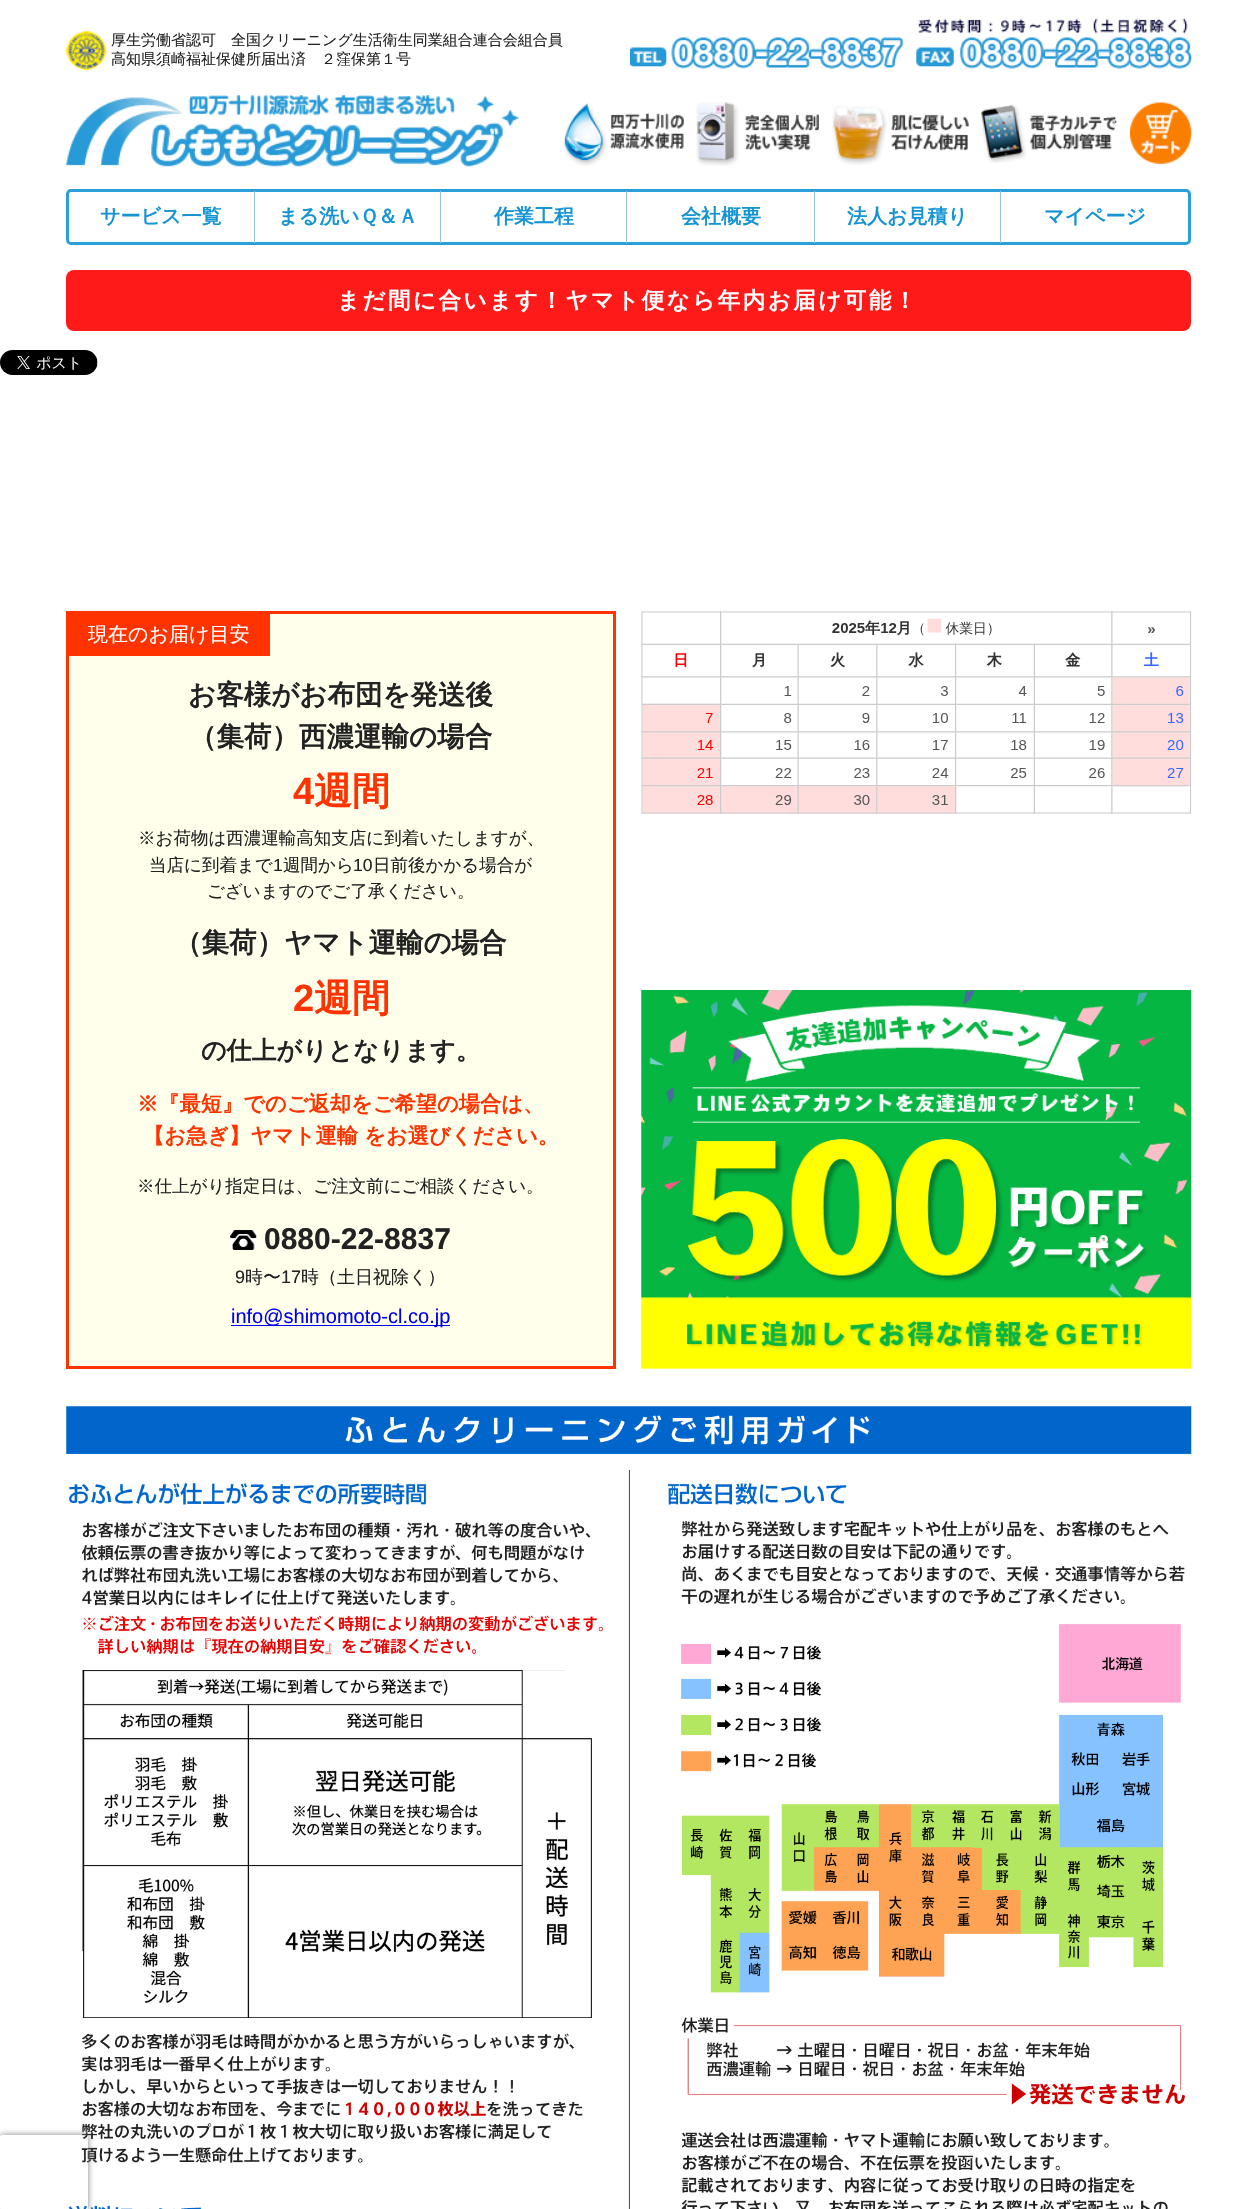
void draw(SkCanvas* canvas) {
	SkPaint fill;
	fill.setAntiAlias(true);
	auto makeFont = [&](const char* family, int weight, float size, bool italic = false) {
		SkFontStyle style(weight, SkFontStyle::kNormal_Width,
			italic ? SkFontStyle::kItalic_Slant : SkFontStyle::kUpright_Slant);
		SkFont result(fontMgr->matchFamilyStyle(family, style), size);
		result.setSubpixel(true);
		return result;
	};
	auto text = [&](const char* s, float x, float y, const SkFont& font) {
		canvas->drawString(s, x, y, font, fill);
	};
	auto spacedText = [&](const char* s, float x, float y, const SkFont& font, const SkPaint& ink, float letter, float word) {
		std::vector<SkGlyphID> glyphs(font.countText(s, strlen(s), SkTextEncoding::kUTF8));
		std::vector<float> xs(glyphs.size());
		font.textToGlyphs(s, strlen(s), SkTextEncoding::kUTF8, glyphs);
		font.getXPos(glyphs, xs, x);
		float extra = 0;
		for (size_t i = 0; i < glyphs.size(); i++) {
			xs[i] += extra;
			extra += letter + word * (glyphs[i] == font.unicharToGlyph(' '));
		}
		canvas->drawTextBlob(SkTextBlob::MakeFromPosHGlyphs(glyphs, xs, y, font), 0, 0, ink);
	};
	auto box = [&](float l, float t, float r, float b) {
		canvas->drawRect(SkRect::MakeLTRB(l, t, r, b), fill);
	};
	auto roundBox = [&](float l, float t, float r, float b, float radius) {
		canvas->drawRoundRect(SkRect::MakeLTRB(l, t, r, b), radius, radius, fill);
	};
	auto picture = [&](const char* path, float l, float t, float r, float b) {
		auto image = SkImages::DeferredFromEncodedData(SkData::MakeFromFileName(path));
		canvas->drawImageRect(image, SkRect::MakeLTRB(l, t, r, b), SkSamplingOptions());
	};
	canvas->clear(0xFFFFFFFF);
	picture("image0.png", 66, 31, 107, 70);
	picture("image1.png", 630, 18, 1192, 69);
	picture("image2.png", 66, 95, 519, 167);
	picture("image3.png", 563, 103, 684, 166);
	picture("image4.png", 696, 102, 819, 166);
	picture("image5.png", 832, 106, 969, 165);
	picture("image6.png", 981, 104, 1118, 163);
	picture("image7.png", 1130, 102, 1192, 164);
	fill.setStyle(SkPaint::kStroke_Style);
	fill.setStrokeWidth(3);
	fill.setColor(0xFF2B9FD9);
	canvas->drawRoundRect(SkRect::MakeLTRB(67.5f, 190.5f, 1189.5f, 243.5f), 3.5f, 3.5f, fill);
	fill.setStyle(SkPaint::kFill_Style);
	fill.setColor(0xFF95C6DE);
	box(254, 191, 255, 243);
	box(440, 191, 441, 243);
	box(626, 191, 627, 243);
	box(814, 191, 815, 243);
	box(1000, 191, 1001, 243);
	fill.setColor(0xFFFF1A1A);
	roundBox(66, 270, 1191, 331, 8);
	picture("image8.png", 0, 350, 98, 375);
	fill.setColor(0xFFFFFFEB);
	canvas->drawRect(SkRect::MakeLTRB(67.5f, 612.5f, 614.5f, 1367.5f), fill);
	fill.setStyle(SkPaint::kStroke_Style);
	fill.setColor(0xFFFF3300);
	canvas->drawRect(SkRect::MakeLTRB(67.5f, 612.5f, 614.5f, 1367.5f), fill);
	fill.setStyle(SkPaint::kFill_Style);
	box(69, 614, 270, 656);
	picture("image9.png", 230, 1230, 257, 1250);
	fill.setColor(0xFF0000EE);
	box(231, 1325, 450, 1326);
	picture("image10.png", 641, 611, 1192, 814);
	picture("image11.png", 641, 990, 1192, 1369);
	picture("image12.png", 66, 1406, 1192, 2209);
	canvas->save();
	canvas->clipPath(SkPathBuilder(SkPathFillType::kEvenOdd).moveTo(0, 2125).lineTo(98, 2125).lineTo(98, 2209).lineTo(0, 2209).close().moveTo(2.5f, 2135).lineTo(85.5f, 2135).cubicTo(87, 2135, 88, 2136, 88, 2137.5f).lineTo(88, 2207.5f).cubicTo(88, 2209, 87, 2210, 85.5f, 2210).lineTo(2.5f, 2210).cubicTo(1, 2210, 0, 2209, 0, 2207.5f).lineTo(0, 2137.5f).cubicTo(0, 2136, 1, 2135, 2.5f, 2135).close().detach(), true);
	fill.setColor(0xFF808080);
	fill.setMaskFilter(SkMaskFilter::MakeBlur(kNormal_SkBlurStyle, 3));
	canvas->drawRoundRect(SkRect::MakeLTRB(0, 2135, 88, 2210), 2.5f, 2.5f, fill);
	fill.setMaskFilter(nullptr);
	canvas->restore();
	auto font1 = makeFont("WenQuanYi Zen Hei", 500, 15);
	fill.setColor(0xFF222222);
	text("厚生労働省認可　全国クリーニング生活衛生同業組合連合会組合員", 111, 45, font1);
	text("高知県須崎福祉保健所届出済　２窪保第１号", 111, 64, font1);
	auto font2 = makeFont("WenQuanYi Zen Hei", 700, 20);
	fill.setColor(0xFF1594D4);
	text("サービス一覧", 100, 223, font2);
	text("まる洗いＱ＆Ａ", 278, 223, font2);
	text("作業工程", 494, 223, font2);
	text("会社概要", 681, 223, font2);
	text("法人お見積り", 847, 223, font2);
	text("マイページ", 1044, 223, font2);
	auto font3 = makeFont("WenQuanYi Zen Hei", 700, 22.5f);
	fill.setColor(0xFFFFFFFF);
	spacedText("まだ間に合います！ヤマト便なら年内お届け可能！", 337, 308, font3, fill, 2.5f, 0);
	auto font4 = makeFont("WenQuanYi Zen Hei", 500, 20);
	text("現在のお届け目安", 88, 641, font4);
	auto font5 = makeFont("WenQuanYi Zen Hei", 700, 27.5f);
	fill.setColor(0xFF222222);
	text("お客様がお布団を発送後", 188, 704, font5);
	text("（集荷）西濃運輸の場合", 189, 746, font5);
	auto font6 = makeFont("Liberation Sans", 700, 38);
	fill.setColor(0xFFFF3300);
	text("4", 293, 804, font6);
	auto font7 = makeFont("WenQuanYi Zen Hei", 700, 38);
	text("週間", 314, 804, font7);
	auto font8 = makeFont("WenQuanYi Zen Hei", 500, 17.5f);
	fill.setColor(0xFF222222);
	text("※お荷物は西濃運輸高知支店に到着いたしますが、", 138, 844, font8);
	text("当店に到着まで", 149, 871, font8);
	auto font9 = makeFont("Liberation Sans", 400, 17.5f);
	text("1", 273, 871, font9);
	text("週間から", 283, 871, font8);
	text("10", 353, 871, font9);
	text("日前後かかる場合が", 373, 871, font8);
	text("ございますのでご了承ください。", 207, 897, font8);
	text("（集荷）ヤマト運輸の場合", 174, 952, font5);
	fill.setColor(0xFFFF3300);
	text("2", 293, 1011, font6);
	text("週間", 314, 1011, font7);
	auto font10 = makeFont("WenQuanYi Zen Hei", 700, 25);
	fill.setColor(0xFF222222);
	text("の仕上がりとなります。", 201, 1059, font10);
	auto font11 = makeFont("WenQuanYi Zen Hei", 700, 21.25f);
	fill.setColor(0xFFFF3300);
	text("※『最短』でのご返却をご希望の場合は、", 137, 1111, font11);
	text("【お急ぎ】ヤマト運輸 をお選びください。", 143, 1143, font11);
	fill.setColor(0xFF222222);
	text("※仕上がり指定日は、ご注文前にご相談ください。", 137, 1192, font8);
	auto font12 = makeFont("Liberation Sans", 700, 30);
	text("0880-22-8837", 264, 1249, font12);
	auto font13 = makeFont("Liberation Sans", 400, 18);
	text("9", 235, 1283, font13);
	auto font14 = makeFont("WenQuanYi Zen Hei", 500, 18);
	text("時〜", 245, 1283, font14);
	text("17", 281, 1283, font13);
	text("時（土日祝除く）", 301, 1283, font14);
	auto font15 = makeFont("Liberation Sans", 400, 20);
	fill.setColor(0xFF0000EE);
	text("info@shimomoto-cl.co.jp", 231, 1323, font15);
}
